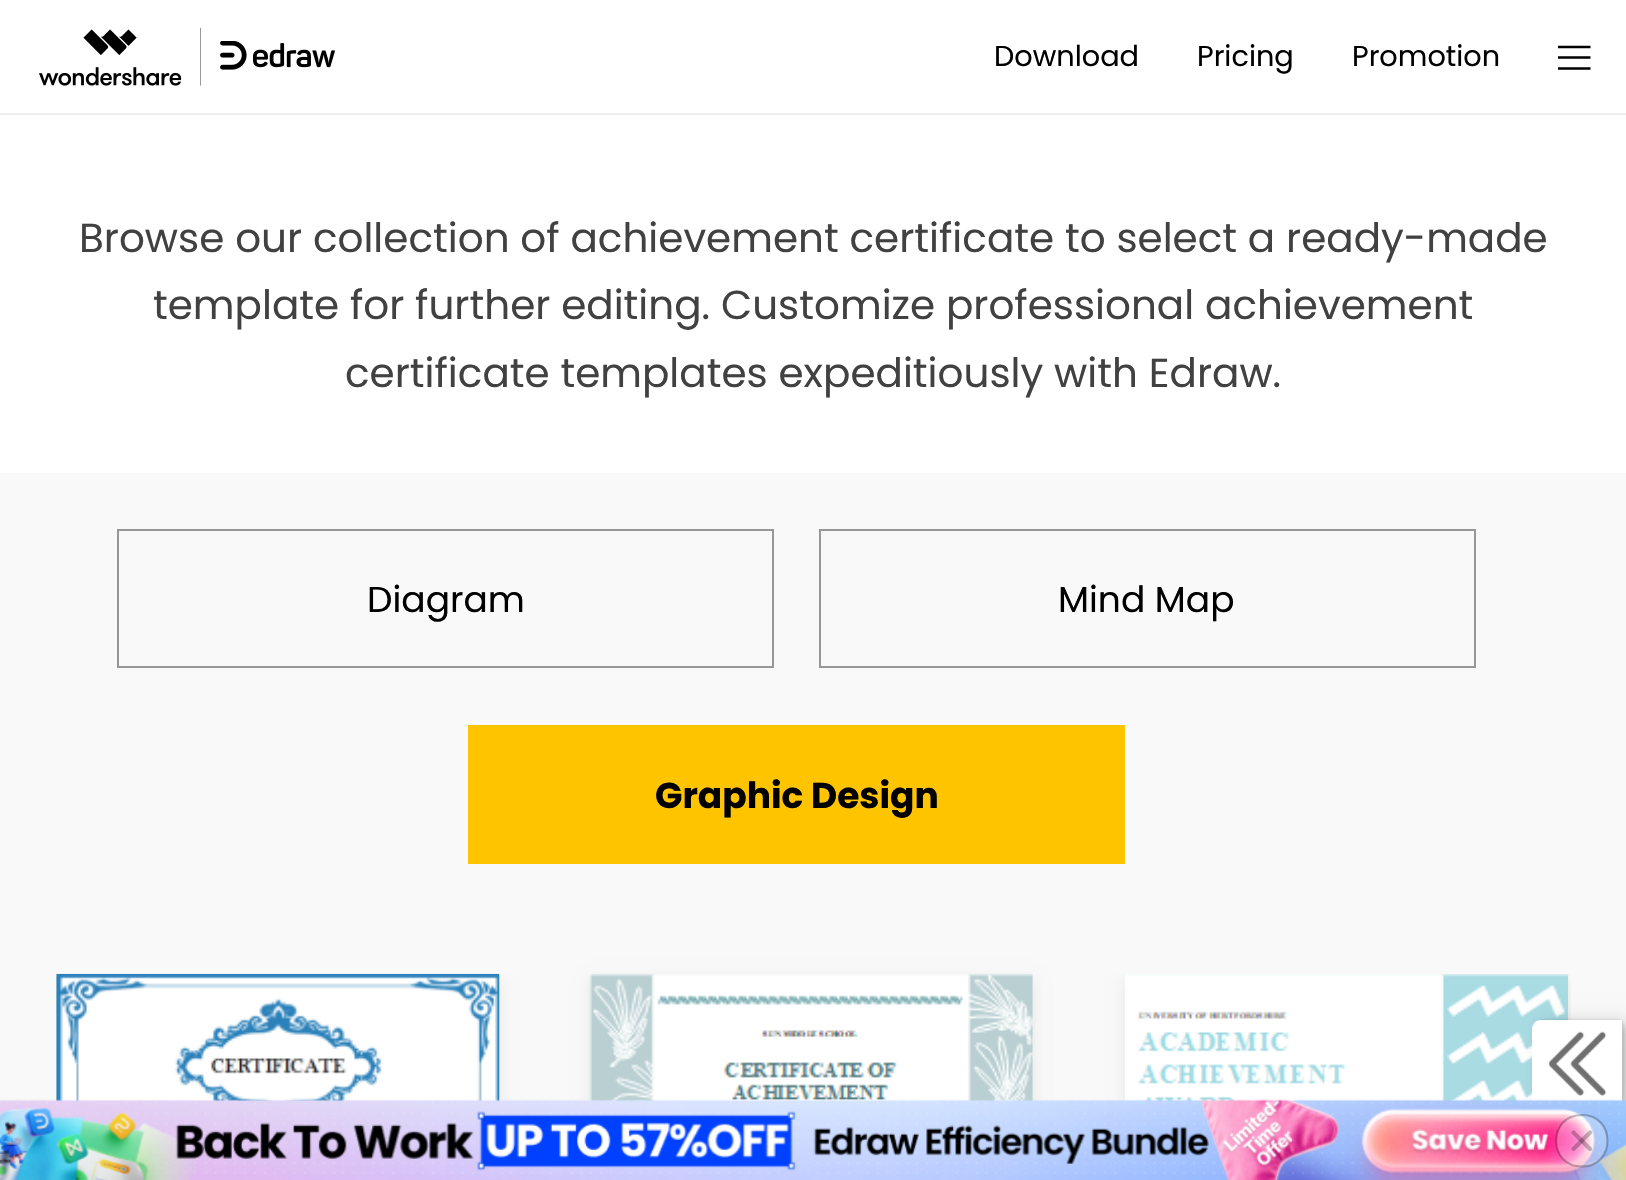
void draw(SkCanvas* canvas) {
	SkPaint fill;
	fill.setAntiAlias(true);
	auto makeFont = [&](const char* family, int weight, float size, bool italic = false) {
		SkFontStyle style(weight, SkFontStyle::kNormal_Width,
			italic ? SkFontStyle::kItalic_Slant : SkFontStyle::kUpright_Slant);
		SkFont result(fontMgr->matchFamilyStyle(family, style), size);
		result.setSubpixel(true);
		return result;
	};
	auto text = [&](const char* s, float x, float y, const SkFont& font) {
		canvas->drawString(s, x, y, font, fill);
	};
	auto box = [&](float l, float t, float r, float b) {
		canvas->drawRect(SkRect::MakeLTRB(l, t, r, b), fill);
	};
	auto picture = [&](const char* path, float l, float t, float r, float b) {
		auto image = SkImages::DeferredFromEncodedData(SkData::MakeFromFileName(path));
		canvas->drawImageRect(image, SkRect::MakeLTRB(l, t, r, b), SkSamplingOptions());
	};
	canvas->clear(0xFFFFFFFF);
	fill.setColor(0xFFEEEEEE);
	box(0, 113, 1626, 115);
	picture("image0.png", 39, 27, 335, 86);
	fill.setStyle(SkPaint::kStroke_Style);
	fill.setStrokeWidth(2.7f);
	fill.setStrokeJoin(SkPaint::kBevel_Join);
	fill.setColor(0xFF000000);
	canvas->drawPath(SkPathBuilder().moveTo(1558, 47).lineTo(1590.5f, 47).moveTo(1558, 57.5f).lineTo(1590.5f, 57.5f).moveTo(1558, 68.5f).lineTo(1590.5f, 68.5f).detach(), fill);
	fill.setStyle(SkPaint::kFill_Style);
	fill.setColor(0xFFF9F9F9);
	box(0, 473, 1626, 1101);
	fill.setStyle(SkPaint::kStroke_Style);
	fill.setStrokeWidth(2);
	fill.setStrokeJoin(SkPaint::kMiter_Join);
	fill.setColor(0xFF979797);
	canvas->drawRect(SkRect::MakeLTRB(118, 530, 773, 667), fill);
	canvas->drawRect(SkRect::MakeLTRB(820, 530, 1475, 667), fill);
	fill.setStyle(SkPaint::kFill_Style);
	fill.setColor(0xFFFFC400);
	box(468, 725, 1125, 864);
	canvas->save();
	canvas->clipRect(SkRect::MakeLTRB(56, 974, 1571, 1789));
	fill.setColor(0x12000000);
	fill.setMaskFilter(SkMaskFilter::MakeBlur(kNormal_SkBlurStyle, 7));
	canvas->drawRect(SkRect::MakeLTRB(56, 979, 500, 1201), fill);
	fill.setMaskFilter(nullptr);
	canvas->restore();
	picture("image1.png", 56, 973, 500, 1101);
	fill.setMaskFilter(SkMaskFilter::MakeBlur(kNormal_SkBlurStyle, 7));
	canvas->drawRect(SkRect::MakeLTRB(590, 979, 1033, 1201), fill);
	fill.setMaskFilter(nullptr);
	picture("image2.png", 589, 974, 1033, 1101);
	canvas->save();
	canvas->clipRect(SkRect::MakeLTRB(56, 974, 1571, 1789));
	fill.setMaskFilter(SkMaskFilter::MakeBlur(kNormal_SkBlurStyle, 7));
	canvas->drawRect(SkRect::MakeLTRB(1125, 979, 1568, 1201), fill);
	fill.setMaskFilter(nullptr);
	canvas->restore();
	picture("image3.png", 1125, 974, 1569, 1101);
	fill.setColor(0x1A000000);
	fill.setMaskFilter(SkMaskFilter::MakeBlur(kNormal_SkBlurStyle, 12.5f));
	canvas->drawRoundRect(SkRect::MakeLTRB(1548, 1022, 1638, 1112), 9, 9, fill);
	fill.setMaskFilter(nullptr);
	fill.setColor(0x14000000);
	fill.setMaskFilter(SkMaskFilter::MakeBlur(kNormal_SkBlurStyle, 1));
	canvas->drawRoundRect(SkRect::MakeLTRB(1535, 1019, 1625, 1109), 9, 9, fill);
	fill.setMaskFilter(nullptr);
	fill.setColor(0x1A000000);
	fill.setMaskFilter(SkMaskFilter::MakeBlur(kNormal_SkBlurStyle, 4.5f));
	canvas->drawRoundRect(SkRect::MakeLTRB(1537, 1022, 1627, 1112), 9, 9, fill);
	fill.setMaskFilter(nullptr);
	fill.setColor(0xFFFFFFFF);
	canvas->drawPath(SkPathBuilder().moveTo(1622, 1020).lineTo(1541, 1020).cubicTo(1536, 1020, 1532, 1024, 1532, 1029).lineTo(1532, 1101).cubicTo(1532, 1106, 1536, 1110, 1541, 1110).lineTo(1622, 1110).close().detach(), fill);
	picture("image4.png", 1548, 1031, 1607, 1096);
	picture("image5.png", 0, 1099, 1626, 1180);
	fill.setColor(0x40FFFFFF);
	canvas->drawPath(SkPathBuilder().moveTo(1582, 1115).cubicTo(1548, 1115, 1548, 1167, 1582, 1167).cubicTo(1616, 1167, 1616, 1115, 1582, 1115).close().detach(), fill);
	fill.setStyle(SkPaint::kStroke_Style);
	fill.setStrokeWidth(2.1f);
	fill.setColor(0x40000000);
	canvas->drawPath(SkPathBuilder().moveTo(1582, 1115).cubicTo(1547.5f, 1115, 1547.5f, 1166.5f, 1582, 1166.5f).cubicTo(1616, 1166.5f, 1616, 1115, 1582, 1115).close().detach(), fill);
	fill.setStrokeWidth(4.2f);
	fill.setStrokeCap(SkPaint::kRound_Cap);
	fill.setStrokeJoin(SkPaint::kRound_Join);
	canvas->drawPath(SkPathBuilder().moveTo(1590, 1132.5f).lineTo(1573.5f, 1149).detach(), fill);
	canvas->drawPath(SkPathBuilder().moveTo(1573.5f, 1132.5f).lineTo(1590, 1149).detach(), fill);
	auto font1 = makeFont("Poppins", 400, 28.75f);
	fill.setStyle(SkPaint::kFill_Style);
	fill.setColor(0xFF000000);
	text("Download", 994, 66, font1);
	text("Pricing", 1197, 66, font1);
	text("Promotion", 1352, 66, font1);
	auto font2 = makeFont("Poppins", 400, 40.5f);
	fill.setColor(0xFF414141);
	text("Browse our collection of achievement certificate to select a ready-made", 79, 252, font2);
	text("template for further editing. Customize professional achievement", 153, 319, font2);
	text("certificate templates expeditiously with Edraw.", 345, 387, font2);
	auto font3 = makeFont("Poppins", 400, 36);
	fill.setColor(0xFF000000);
	text("Diagram", 367, 612, font3);
	text("Mind Map", 1058, 612, font3);
	auto font4 = makeFont("Poppins", 700, 36);
	text("Graphic Design", 655, 808, font4);
}
